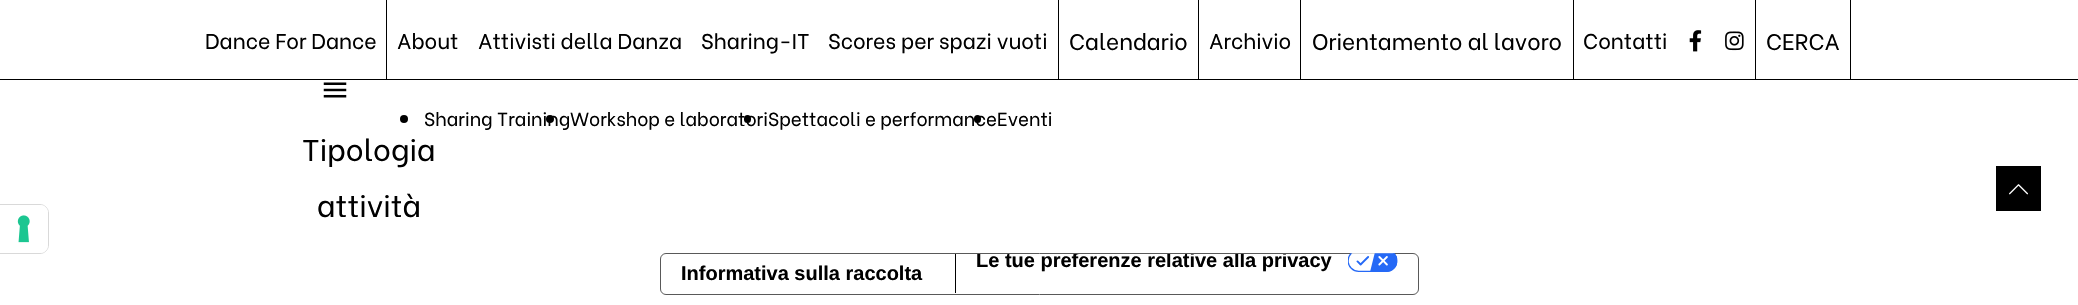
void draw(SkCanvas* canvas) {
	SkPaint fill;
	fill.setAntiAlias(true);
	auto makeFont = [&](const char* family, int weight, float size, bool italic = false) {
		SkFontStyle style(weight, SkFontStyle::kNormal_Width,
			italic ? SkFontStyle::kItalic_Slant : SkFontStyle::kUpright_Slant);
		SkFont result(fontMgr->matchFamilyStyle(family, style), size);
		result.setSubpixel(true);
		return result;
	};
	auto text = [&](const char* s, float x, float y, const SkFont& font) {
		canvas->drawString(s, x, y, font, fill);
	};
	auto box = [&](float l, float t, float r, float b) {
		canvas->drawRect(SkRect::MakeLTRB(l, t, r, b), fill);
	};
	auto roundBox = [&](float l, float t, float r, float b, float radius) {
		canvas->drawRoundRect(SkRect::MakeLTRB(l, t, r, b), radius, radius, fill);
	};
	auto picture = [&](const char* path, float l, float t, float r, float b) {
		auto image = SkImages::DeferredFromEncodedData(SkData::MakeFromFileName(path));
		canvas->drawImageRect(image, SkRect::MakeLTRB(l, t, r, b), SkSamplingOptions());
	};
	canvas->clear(0xFFFFFFFF);
	fill.setColor(0xFF000000);
	box(0, 79, 2078, 80);
	box(386, 0, 387, 79);
	box(1198, 0, 1199, 79);
	box(1058, 0, 1059, 79);
	box(1573, 0, 1574, 79);
	box(1300, 0, 1301, 79);
	picture("image0.png", 1689, 30, 1702, 52);
	picture("image1.png", 1725, 31, 1744, 51);
	box(1850, 0, 1851, 79);
	box(1755, 0, 1756, 79);
	canvas->drawCircle(404, 119, 4, fill);
	canvas->drawCircle(550, 119, 4, fill);
	roundBox(744, 115, 751, 123, 3.5f);
	roundBox(974, 115, 981, 123, 3.5f);
	picture("image2.png", 323, 82, 347, 98);
	box(1996, 166, 2041, 211);
	picture("image3.png", 2009, 184, 2028, 195);
	fill.setStyle(SkPaint::kStroke_Style);
	fill.setStrokeWidth(1);
	fill.setColor(0xFFD9D9D9);
	canvas->drawPath(SkPathBuilder().moveTo(-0.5f, 204.5f).lineTo(40, 204.5f).cubicTo(44.5f, 204.5f, 48.5f, 208.5f, 48.5f, 213).lineTo(48.5f, 245).cubicTo(48.5f, 249.5f, 44.5f, 253.5f, 40, 253.5f).lineTo(-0.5f, 253.5f).close().detach(), fill);
	fill.setStyle(SkPaint::kFill_Style);
	fill.setColor(0xFFFFFFFF);
	canvas->drawPath(SkPathBuilder().moveTo(0, 205).lineTo(40, 205).cubicTo(44.5f, 205, 48, 208.5f, 48, 213).lineTo(48, 245).cubicTo(48, 249.5f, 44.5f, 253, 40, 253).lineTo(0, 253).close().detach(), fill);
	picture("image4.png", 17, 215, 30, 243);
	fill.setStyle(SkPaint::kStroke_Style);
	fill.setColor(0xFF595959);
	canvas->drawRoundRect(SkRect::MakeLTRB(660.5f, 253.5f, 1418.5f, 294.5f), 5.5f, 5.5f, fill);
	fill.setStyle(SkPaint::kFill_Style);
	fill.setColor(0xFF000000);
	box(955, 254, 956, 293);
	picture("image5.png", 1348, 253, 1398, 272);
	auto font1 = makeFont("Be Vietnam", 400, 21.25f);
	text("Dance For Dance", 205, 49, font1);
	text("About", 397, 49, font1);
	text("Attivisti della Danza", 478, 49, font1);
	text("Sharing-IT", 701, 49, font1);
	text("Scores per spazi vuoti", 828, 49, font1);
	auto font2 = makeFont("Be Vietnam", 400, 22.5f);
	text("Calendario", 1069, 50, font2);
	text("Archivio", 1209, 49, font1);
	text("Orientamento al lavoro", 1312, 50, font2);
	text("Contatti", 1583, 49, font1);
	text("CERCA", 1766, 50, font2);
	auto font3 = makeFont("Be Vietnam", 400, 18.75f);
	text("Sharing TrainingWorkshop e laboratoriSpettacoli e performanceEventi", 424, 126, font3);
	auto font4 = makeFont("Be Vietnam", 400, 30);
	text("Tipologia", 302, 161, font4);
	text("attività", 317, 217, font4);
	auto font5 = makeFont("Liberation Sans", 700, 20);
	text("Informativa sulla raccolta", 681, 280, font5);
	canvas->save();
	canvas->clipPath(SkPathBuilder().moveTo(666, 254).lineTo(1413, 254).cubicTo(1416, 254, 1418, 256, 1418, 259).lineTo(1418, 289).cubicTo(1418, 292, 1416, 294, 1413, 294).lineTo(666, 294).cubicTo(663, 294, 661, 292, 661, 289).lineTo(661, 259).cubicTo(661, 256, 663, 254, 666, 254).close().detach(), true);
	text("Le tue preferenze relative alla privacy", 976, 267, font5);
	canvas->restore();
}
